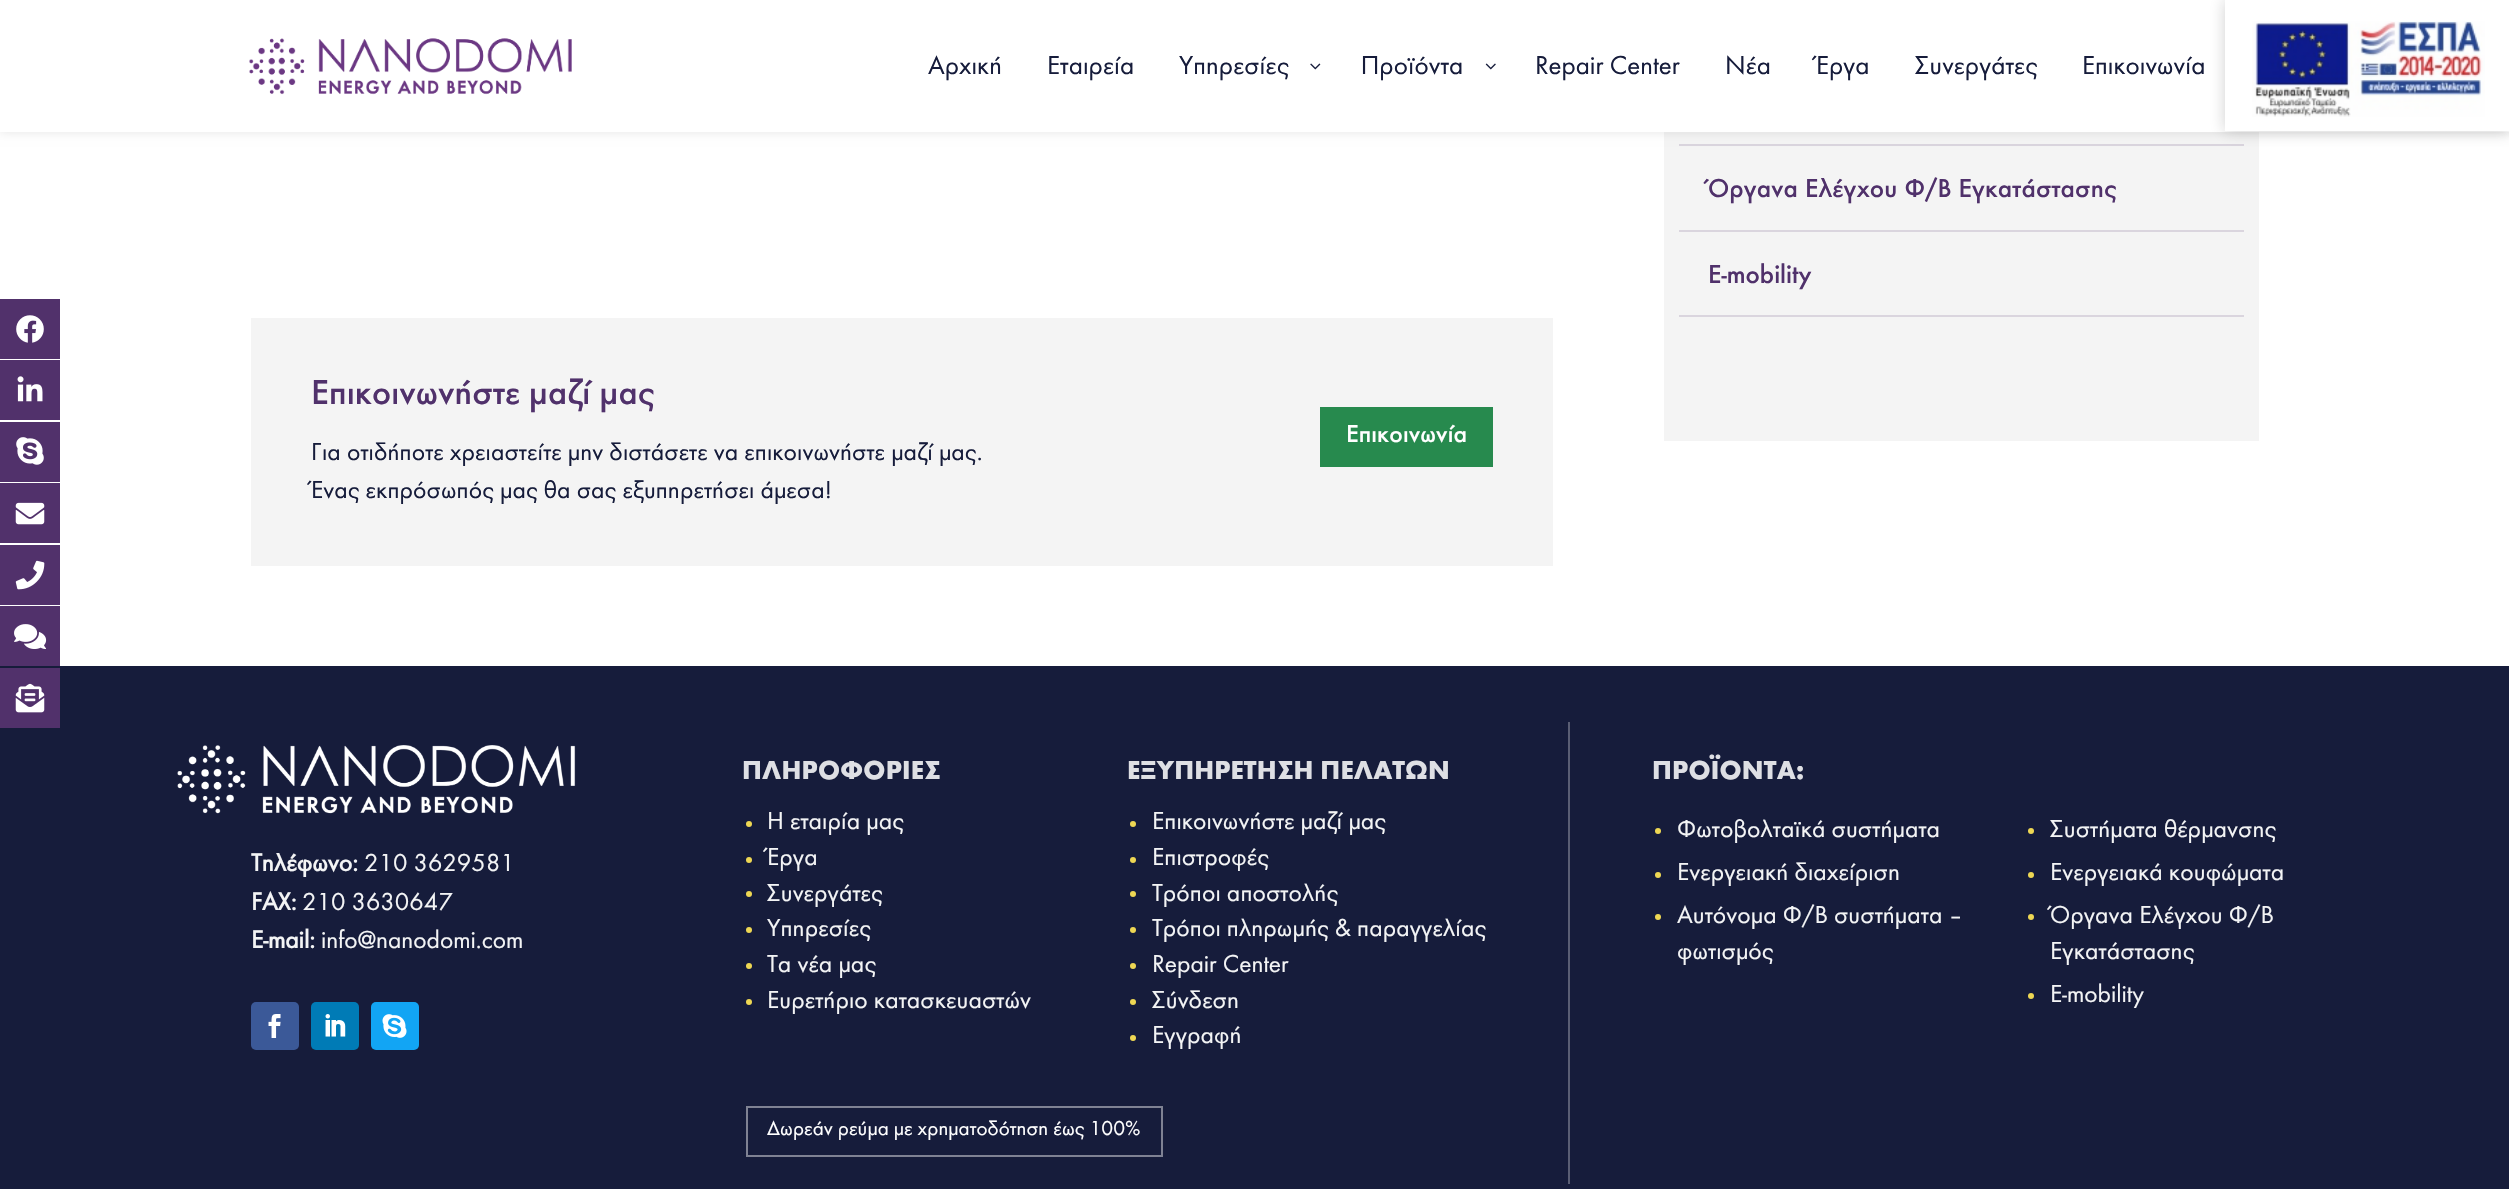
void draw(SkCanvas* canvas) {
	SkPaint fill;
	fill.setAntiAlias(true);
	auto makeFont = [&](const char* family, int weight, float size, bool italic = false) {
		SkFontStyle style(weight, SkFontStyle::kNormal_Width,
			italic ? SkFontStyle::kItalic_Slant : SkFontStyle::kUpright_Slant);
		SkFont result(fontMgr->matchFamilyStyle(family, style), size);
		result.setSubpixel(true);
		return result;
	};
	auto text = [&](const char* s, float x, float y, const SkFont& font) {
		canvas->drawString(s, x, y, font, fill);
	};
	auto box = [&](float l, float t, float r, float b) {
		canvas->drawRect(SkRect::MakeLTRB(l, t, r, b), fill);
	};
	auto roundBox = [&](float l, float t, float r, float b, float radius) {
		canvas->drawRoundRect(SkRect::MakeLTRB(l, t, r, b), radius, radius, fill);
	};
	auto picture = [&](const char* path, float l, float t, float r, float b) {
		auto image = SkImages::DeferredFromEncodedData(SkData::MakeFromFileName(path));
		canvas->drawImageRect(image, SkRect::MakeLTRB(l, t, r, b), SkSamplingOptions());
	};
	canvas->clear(0xFFFFFFFF);
	fill.setColor(0xFF51316B);
	box(0, 299, 60, 359);
	picture("image0.png", 16, 315, 44, 343);
	box(0, 360, 60, 420);
	picture("image1.png", 17, 376, 43, 402);
	box(0, 422, 60, 482);
	picture("image2.png", 16, 437, 44, 465);
	box(0, 483, 60, 543);
	picture("image3.png", 15, 502, 45, 525);
	box(0, 545, 60, 605);
	picture("image4.png", 15, 560, 45, 590);
	box(0, 606, 60, 666);
	picture("image5.png", 14, 624, 47, 649);
	fill.setColor(0xFF161C3B);
	box(0, 666, 2509, 1189);
	fill.setColor(0xFF51316B);
	box(0, 668, 60, 728);
	picture("image6.png", 15, 683, 45, 713);
	fill.setColor(0xFFF4F4F4);
	box(1664, 132, 2259, 441);
	fill.setColor(0xFFDAD5DE);
	box(1679, 144, 2244, 146);
	fill.setColor(0x1A000000);
	fill.setMaskFilter(SkMaskFilter::MakeBlur(kNormal_SkBlurStyle, 5));
	canvas->drawRect(SkRect::MakeLTRB(0, 0, 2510, 132), fill);
	fill.setMaskFilter(nullptr);
	fill.setColor(0xFFFFFFFF);
	box(0, 0, 2509, 132);
	picture("image7.png", 249, 38, 572, 95);
	picture("image8.png", 1310, 63, 1321, 70);
	picture("image9.png", 1485, 63, 1496, 70);
	fill.setColor(0xFFDAD5DE);
	box(1679, 230, 2244, 232);
	box(1679, 315, 2244, 317);
	fill.setColor(0xFFF4F4F4);
	box(251, 318, 1553, 566);
	fill.setColor(0xFF278A4E);
	box(1320, 407, 1493, 467);
	fill.setColor(0xFF5A5E74);
	box(1568, 722, 1570, 1184);
	picture("image10.png", 177, 745, 576, 814);
	fill.setColor(0xFF3B5998);
	roundBox(251, 1002, 299, 1050, 5);
	picture("image11.png", 268, 1014, 281, 1038);
	fill.setColor(0xFF007BB6);
	roundBox(311, 1002, 359, 1050, 5);
	picture("image12.png", 325, 1014, 346, 1037);
	fill.setColor(0xFF12A5F4);
	roundBox(371, 1002, 419, 1050, 5);
	picture("image13.png", 382, 1014, 407, 1038);
	fill.setColor(0xFFEED753);
	canvas->drawCircle(749, 824, 3, fill);
	canvas->drawCircle(749, 860, 3, fill);
	canvas->drawCircle(749, 894, 3, fill);
	canvas->drawCircle(749, 930, 3, fill);
	canvas->drawCircle(749, 966, 3, fill);
	canvas->drawCircle(749, 1002, 3, fill);
	fill.setStyle(SkPaint::kStroke_Style);
	fill.setStrokeWidth(2);
	fill.setColor(0xFF7F8293);
	canvas->drawRect(SkRect::MakeLTRB(747, 1107, 1162, 1156), fill);
	fill.setStyle(SkPaint::kFill_Style);
	fill.setColor(0xFFEED753);
	canvas->drawCircle(1133, 824, 3, fill);
	canvas->drawCircle(1133, 860, 3, fill);
	canvas->drawCircle(1133, 894, 3, fill);
	canvas->drawCircle(1133, 930, 3, fill);
	canvas->drawCircle(1133, 966, 3, fill);
	canvas->drawCircle(1133, 1002, 3, fill);
	canvas->drawCircle(1133, 1038, 3, fill);
	canvas->drawCircle(1658, 831, 3, fill);
	canvas->drawCircle(1658, 875, 3, fill);
	canvas->drawCircle(1658, 917, 3, fill);
	canvas->drawCircle(2031, 831, 3, fill);
	canvas->drawCircle(2031, 875, 3, fill);
	canvas->drawCircle(2031, 917, 3, fill);
	canvas->drawCircle(2031, 996, 3, fill);
	fill.setColor(0x33131313);
	fill.setMaskFilter(SkMaskFilter::MakeBlur(kNormal_SkBlurStyle, 7.5f));
	canvas->drawRect(SkRect::MakeLTRB(2225, 0, 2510, 131), fill);
	fill.setMaskFilter(nullptr);
	fill.setColor(0xFFFFFFFF);
	box(2225, 0, 2509, 131);
	picture("image14.png", 2252, 21, 2485, 117);
	auto font1 = makeFont("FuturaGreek", 400, 27);
	fill.setColor(0xFF161C3B);
	text("Αρχική", 928, 74, font1);
	text("Εταιρεία", 1047, 74, font1);
	text("Υπηρεσίες", 1179, 74, font1);
	text("Προϊόντα", 1361, 74, font1);
	text("Repair Center", 1535, 74, font1);
	text("Νέα", 1725, 74, font1);
	text("Έργα", 1816, 74, font1);
	text("Συνεργάτες", 1915, 74, font1);
	text("Επικοινωνία", 2082, 74, font1);
	auto font2 = makeFont("FuturaGreek", 500, 27);
	fill.setColor(0xFF50316B);
	text("Όργανα Ελέγχου Φ/Β Εγκατάστασης", 1708, 197, font2);
	text("E-mobility", 1708, 283, font2);
	auto font3 = makeFont("FuturaGreek", 500, 36);
	text("Επικοινωνήστε μαζί μας", 311, 404, font3);
	auto font4 = makeFont("FuturaGreek", 400, 25.5f);
	fill.setColor(0xFF161C3B);
	text("Για οτιδήποτε χρειαστείτε μην διστάσετε να επικοινωνήστε μαζί μας.", 311, 460, font4);
	text("Ένας εκπρόσωπός μας θα σας εξυπηρετήσει άμεσα!", 311, 498, font4);
	auto font5 = makeFont("FuturaGreek", 500, 25.5f);
	fill.setColor(0xFFFFFFFF);
	text("Επικοινωνία", 1346, 442, font5);
	auto font6 = makeFont("FuturaGreek", 700, 25.5f);
	fill.setColor(0xFFF3F4F5);
	text("Τηλέφωνο:", 251, 871, font6);
	text("210 3629581", 364, 871, font4);
	text("FAX:", 251, 910, font6);
	text("210 3630647", 302, 910, font4);
	text("E-mail:", 251, 948, font6);
	text("info@nanodomi.com", 321, 948, font4);
	auto font7 = makeFont("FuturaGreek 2", 700, 27);
	fill.setColor(0xFFDEDFE4);
	text("ΠΛΗΡΟΦΟΡΙΕΣ", 742, 779, font7);
	fill.setColor(0xFFF3F4F5);
	text("Η εταιρία μας", 767, 829, font4);
	text("Έργα", 767, 865, font4);
	text("Συνεργάτες", 767, 901, font4);
	text("Υπηρεσίες", 767, 936, font4);
	text("Τα νέα μας", 767, 972, font4);
	text("Ευρετήριο κατασκευαστών", 767, 1008, font4);
	auto font8 = makeFont("FuturaGreek", 400, 21);
	fill.setColor(0xFFFFFFFF);
	text("Δωρεάν ρεύμα με χρηματοδότηση έως 100%", 767, 1135, font8);
	fill.setColor(0xFFDEDFE4);
	text("ΕΞΥΠΗΡΕΤΗΣΗ ΠΕΛΑΤΩΝ", 1127, 779, font7);
	fill.setColor(0xFFF3F4F5);
	text("Επικοινωνήστε μαζί μας", 1152, 829, font4);
	text("Επιστροφές", 1152, 865, font4);
	text("Τρόποι αποστολής", 1152, 901, font4);
	text("Τρόποι πληρωμής & παραγγελίας", 1152, 936, font4);
	text("Repair Center", 1152, 972, font4);
	text("Σύνδεση", 1152, 1008, font4);
	text("Εγγραφή", 1152, 1043, font4);
	fill.setColor(0xFFDEDFE4);
	text("ΠΡΟΪΟΝΤΑ:", 1652, 779, font7);
	fill.setColor(0xFFF3F4F5);
	text("Φωτοβολταϊκά συστήματα", 1677, 837, font4);
	text("Ενεργειακή διαχείριση", 1677, 880, font4);
	text("Αυτόνομα Φ/Β συστήματα –", 1677, 923, font4);
	text("φωτισμός", 1677, 959, font4);
	text("Συστήματα θέρμανσης", 2050, 837, font4);
	text("Ενεργειακά κουφώματα", 2050, 880, font4);
	text("Όργανα Ελέγχου Φ/Β", 2050, 923, font4);
	text("Εγκατάστασης", 2050, 959, font4);
	text("E-mobility", 2050, 1002, font4);
}
